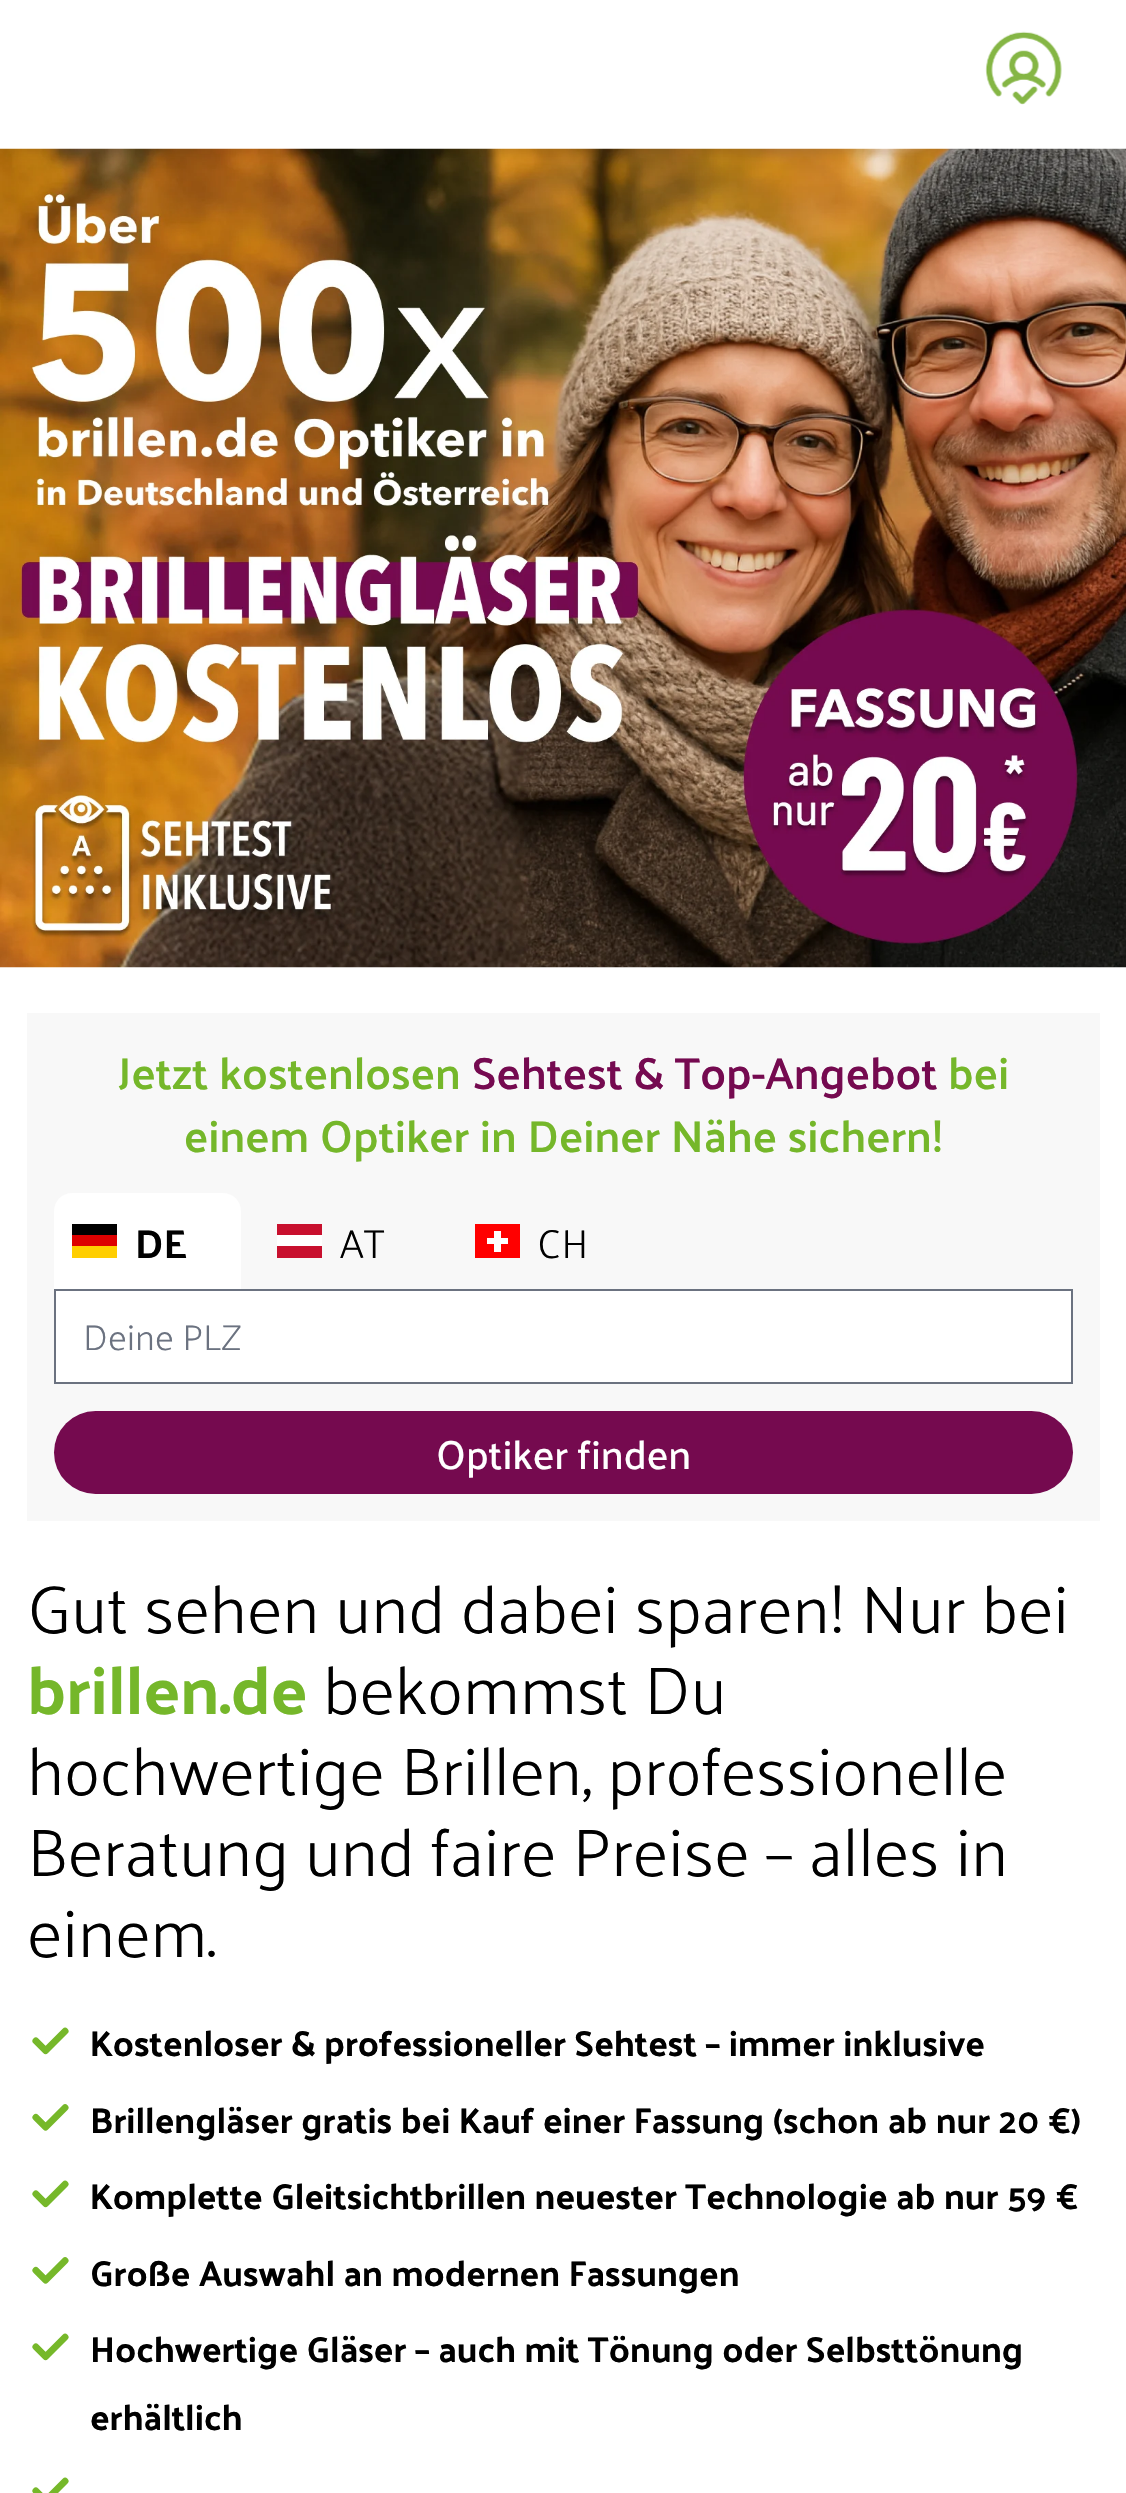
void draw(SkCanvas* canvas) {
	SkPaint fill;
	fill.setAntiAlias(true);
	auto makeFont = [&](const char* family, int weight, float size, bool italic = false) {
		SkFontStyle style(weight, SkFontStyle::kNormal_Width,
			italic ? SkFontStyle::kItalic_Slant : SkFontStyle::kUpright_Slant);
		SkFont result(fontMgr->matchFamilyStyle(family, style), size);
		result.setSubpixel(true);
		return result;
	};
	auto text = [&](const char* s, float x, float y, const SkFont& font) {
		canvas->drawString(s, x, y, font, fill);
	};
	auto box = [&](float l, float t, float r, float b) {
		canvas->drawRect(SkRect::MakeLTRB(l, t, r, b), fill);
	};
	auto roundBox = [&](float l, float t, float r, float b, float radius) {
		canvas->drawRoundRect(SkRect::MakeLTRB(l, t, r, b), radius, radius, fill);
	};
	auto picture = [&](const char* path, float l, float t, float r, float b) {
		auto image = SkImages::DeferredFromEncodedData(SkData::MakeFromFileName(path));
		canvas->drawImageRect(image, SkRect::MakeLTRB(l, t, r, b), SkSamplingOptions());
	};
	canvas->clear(0xFFFFFFFF);
	picture("image1.png", 0, 148, 1126, 968);
	canvas->save();
	canvas->clipPath(SkPathBuilder(SkPathFillType::kEvenOdd).moveTo(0, 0).lineTo(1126, 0).lineTo(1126, 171).lineTo(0, 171).close().moveTo(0, 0).lineTo(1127, 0).lineTo(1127, 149).lineTo(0, 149).close().detach(), true);
	fill.setColor(0x1A000000);
	fill.setMaskFilter(SkMaskFilter::MakeBlur(kNormal_SkBlurStyle, 5.5f));
	canvas->drawRect(SkRect::MakeLTRB(0, 5, 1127, 153), fill);
	fill.setMaskFilter(nullptr);
	canvas->restore();
	picture("image0.png", 985, 31, 1062, 105);
	fill.setColor(0xFFF8F8F8);
	box(27, 1013, 1100, 1521);
	fill.setColor(0xFFFFFFFF);
	canvas->drawPath(SkPathBuilder().moveTo(72, 1193).lineTo(223, 1193).cubicTo(233, 1193, 241, 1201, 241, 1211).lineTo(241, 1289).lineTo(54, 1289).lineTo(54, 1211).cubicTo(54, 1201, 62, 1193, 72, 1193).close().detach(), fill);
	fill.setColor(0xFFFFCE00);
	box(72, 1246, 117, 1258);
	fill.setColor(0xFF000000);
	box(72, 1224, 117, 1235);
	fill.setColor(0xFFDD0000);
	box(72, 1235, 117, 1246);
	fill.setColor(0xFFFFFFFF);
	box(277, 1235, 322, 1246);
	fill.setColor(0xFFC8102E);
	canvas->drawPath(SkPathBuilder(SkPathFillType::kEvenOdd).moveTo(322, 1258).lineTo(277, 1258).lineTo(277, 1246).lineTo(322, 1246).close().moveTo(322, 1235).lineTo(277, 1235).lineTo(277, 1224).lineTo(322, 1224).close().detach(), fill);
	fill.setColor(0xFFFF0000);
	box(475, 1224, 520, 1258);
	fill.setColor(0xFFFFFFFF);
	box(487, 1238, 508, 1244);
	box(494, 1231, 501, 1252);
	canvas->drawRect(SkRect::MakeLTRB(55, 1290, 1072, 1383), fill);
	fill.setStyle(SkPaint::kStroke_Style);
	fill.setStrokeWidth(2);
	fill.setColor(0xFF6B7280);
	canvas->drawRect(SkRect::MakeLTRB(55, 1290, 1072, 1383), fill);
	fill.setStyle(SkPaint::kFill_Style);
	fill.setColor(0xFF750A4F);
	roundBox(54, 1411, 1073, 1494, 41.5f);
	picture("image2.png", 32, 2027, 69, 2055);
	picture("image3.png", 32, 2104, 69, 2131);
	picture("image4.png", 32, 2180, 69, 2208);
	picture("image3.png", 32, 2257, 69, 2284);
	picture("image4.png", 32, 2333, 69, 2361);
	picture("image5.png", 32, 2477, 69, 2493);
	auto font1 = makeFont("Palanquin", 600, 45);
	fill.setColor(0xFF75B72A);
	text("Jetzt kostenlosen", 118, 1089, font1);
	fill.setColor(0xFF750A50);
	text("Sehtest & Top-Angebot", 472, 1089, font1);
	fill.setColor(0xFF75B72A);
	text("bei", 948, 1089, font1);
	text("einem Optiker in Deiner Nähe sichern!", 184, 1152, font1);
	auto font2 = makeFont("Palanquin", 700, 40.5f);
	fill.setColor(0xFF000000);
	text("DE", 135, 1258, font2);
	auto font3 = makeFont("Palanquin", 300, 40.5f);
	text("AT", 340, 1258, font3);
	text("CH", 537, 1258, font3);
	auto font4 = makeFont("Palanquin", 300, 36);
	fill.setColor(0xFF6B7280);
	text("Deine PLZ", 83, 1350, font4);
	auto font5 = makeFont("Palanquin", 500, 40.5f);
	fill.setColor(0xFFFFFFFF);
	text("Optiker finden", 436, 1469, font5);
	auto font6 = makeFont("Palanquin", 300, 67.5f);
	fill.setColor(0xFF000000);
	text("Gut sehen und dabei sparen! Nur bei", 27, 1633, font6);
	auto font7 = makeFont("Palanquin", 700, 67.5f);
	fill.setColor(0xFF75B72A);
	text("brillen.de", 27, 1714, font7);
	fill.setColor(0xFF000000);
	text("bekommst Du", 323, 1714, font6);
	text("hochwertige Brillen, professionelle", 27, 1795, font6);
	text("Beratung und faire Preise – alles in", 27, 1876, font6);
	text("einem.", 27, 1957, font6);
	auto font8 = makeFont("Palanquin", 700, 36);
	text("Kostenloser & professioneller Sehtest – immer inklusive", 90, 2056, font8);
	text("Brillengläser gratis bei Kauf einer Fassung (schon ab nur 20 €)", 90, 2133, font8);
	text("Komplette Gleitsichtbrillen neuester Technologie ab nur 59 €", 90, 2209, font8);
	text("Große Auswahl an modernen Fassungen", 90, 2286, font8);
	text("Hochwertige Gläser – auch mit Tönung oder Selbsttönung", 90, 2362, font8);
	text("erhältlich", 90, 2430, font8);
}
